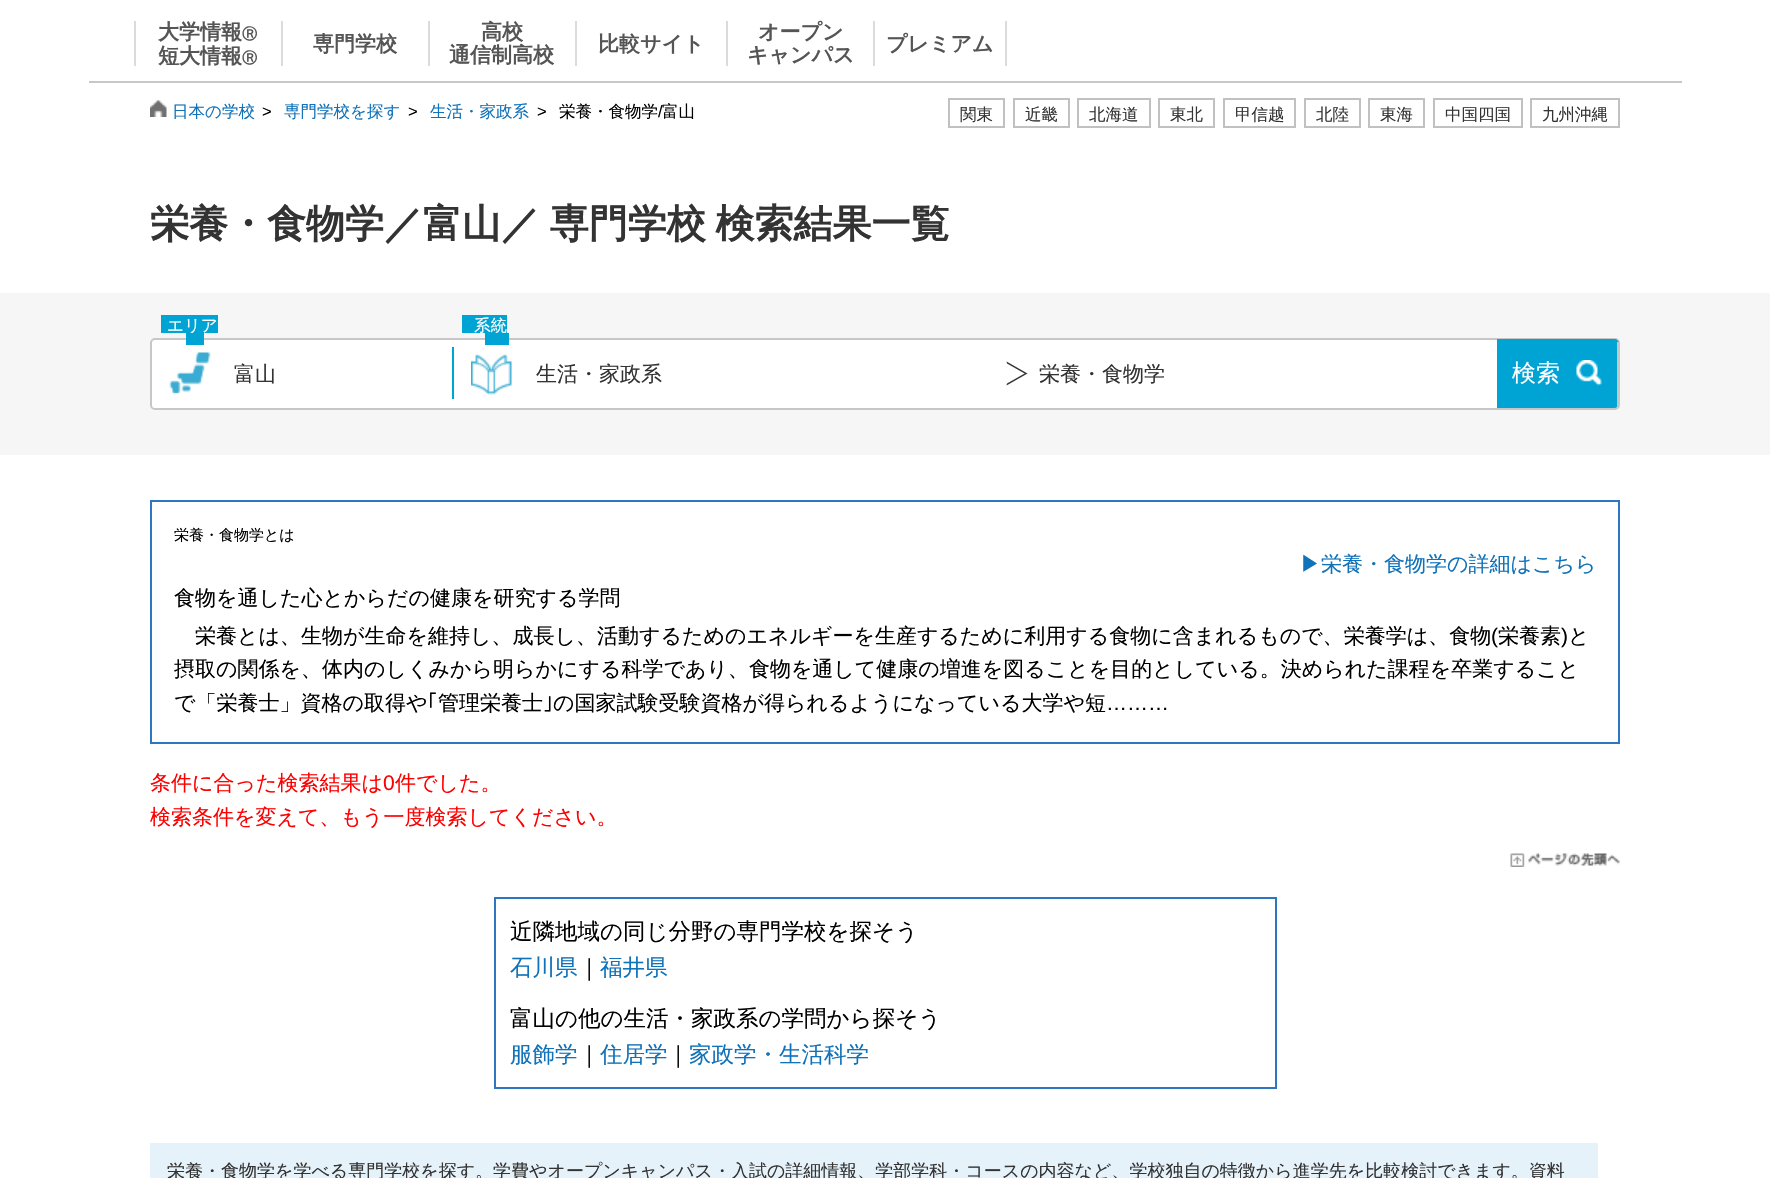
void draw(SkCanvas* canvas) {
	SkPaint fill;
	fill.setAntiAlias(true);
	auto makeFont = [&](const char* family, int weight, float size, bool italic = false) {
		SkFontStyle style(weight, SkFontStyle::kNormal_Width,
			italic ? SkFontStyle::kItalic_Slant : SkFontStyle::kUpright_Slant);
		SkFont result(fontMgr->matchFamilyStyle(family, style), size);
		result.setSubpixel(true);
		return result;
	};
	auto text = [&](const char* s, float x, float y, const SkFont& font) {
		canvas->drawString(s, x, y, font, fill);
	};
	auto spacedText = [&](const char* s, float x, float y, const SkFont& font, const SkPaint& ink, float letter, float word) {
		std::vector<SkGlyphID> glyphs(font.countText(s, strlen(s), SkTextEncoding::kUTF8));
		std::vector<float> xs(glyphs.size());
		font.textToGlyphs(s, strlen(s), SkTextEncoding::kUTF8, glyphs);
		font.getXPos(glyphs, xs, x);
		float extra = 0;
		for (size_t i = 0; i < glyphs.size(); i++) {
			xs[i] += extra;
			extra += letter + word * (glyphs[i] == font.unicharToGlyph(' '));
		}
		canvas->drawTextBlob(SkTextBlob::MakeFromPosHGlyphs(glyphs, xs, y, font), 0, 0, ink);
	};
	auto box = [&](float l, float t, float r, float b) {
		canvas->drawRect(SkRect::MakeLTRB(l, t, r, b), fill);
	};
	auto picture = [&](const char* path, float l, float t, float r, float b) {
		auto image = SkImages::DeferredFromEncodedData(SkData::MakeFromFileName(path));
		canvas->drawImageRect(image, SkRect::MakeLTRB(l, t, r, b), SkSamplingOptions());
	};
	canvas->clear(0xFFFFFFFF);
	fill.setColor(0xFFC7C7C7);
	box(89, 81, 1682, 83);
	fill.setColor(0xFFDBDBDB);
	box(281, 21, 283, 66);
	box(134, 21, 136, 66);
	box(428, 21, 430, 66);
	box(575, 21, 577, 66);
	box(726, 21, 728, 66);
	box(873, 21, 875, 66);
	box(1005, 21, 1007, 66);
	picture("image0.png", 150, 100, 167, 117);
	fill.setStyle(SkPaint::kStroke_Style);
	fill.setStrokeWidth(2);
	fill.setColor(0xFFC1C1C1);
	canvas->drawRect(SkRect::MakeLTRB(949, 99, 1004, 127), fill);
	canvas->drawRect(SkRect::MakeLTRB(1014, 99, 1069, 127), fill);
	canvas->drawRect(SkRect::MakeLTRB(1078, 99, 1150, 127), fill);
	canvas->drawRect(SkRect::MakeLTRB(1159, 99, 1214, 127), fill);
	canvas->drawRect(SkRect::MakeLTRB(1224, 99, 1295, 127), fill);
	canvas->drawRect(SkRect::MakeLTRB(1305, 99, 1360, 127), fill);
	canvas->drawRect(SkRect::MakeLTRB(1369, 99, 1424, 127), fill);
	canvas->drawRect(SkRect::MakeLTRB(1434, 99, 1522, 127), fill);
	canvas->drawRect(SkRect::MakeLTRB(1531, 99, 1619, 127), fill);
	fill.setStyle(SkPaint::kFill_Style);
	fill.setColor(0xFFF6F6F6);
	box(0, 293, 1770, 455);
	fill.setColor(0xFFFFFFFF);
	canvas->drawRoundRect(SkRect::MakeLTRB(151, 339, 1619, 409), 4, 4, fill);
	fill.setStyle(SkPaint::kStroke_Style);
	fill.setColor(0xFFC7C7C7);
	canvas->drawRoundRect(SkRect::MakeLTRB(151, 339, 1619, 409), 4, 4, fill);
	picture("image1.png", 169, 352, 211, 394);
	fill.setStyle(SkPaint::kFill_Style);
	fill.setColor(0xFF00A4D4);
	box(161, 315, 218, 333);
	box(186, 333, 204, 345);
	picture("image2.png", 471, 354, 512, 395);
	box(452, 347, 454, 399);
	box(462, 315, 507, 333);
	box(485, 333, 509, 345);
	fill.setColor(0xFF333333);
	canvas->drawPath(SkPathBuilder().moveTo(1027.5f, 373.5f).lineTo(1006.5f, 385.5f).lineTo(1007, 383.5f).lineTo(1025.5f, 373).close().detach(), fill);
	canvas->drawPath(SkPathBuilder().moveTo(1006.5f, 361.5f).lineTo(1027.5f, 373.5f).lineTo(1025.5f, 374).lineTo(1007, 363.5f).close().detach(), fill);
	fill.setColor(0xFF00A4D4);
	canvas->drawPath(SkPathBuilder().moveTo(1497, 339).lineTo(1614, 339).cubicTo(1617, 339, 1619, 341, 1619, 344).lineTo(1619, 403).cubicTo(1619, 406, 1617, 408, 1614, 408).lineTo(1497, 408).close().detach(), fill);
	picture("image3.png", 1576, 360, 1602, 386);
	fill.setColor(0xFFC7C7C7);
	box(1617, 342, 1619, 407);
	fill.setStyle(SkPaint::kStroke_Style);
	fill.setColor(0xFF2D77C2);
	canvas->drawRect(SkRect::MakeLTRB(151, 501, 1619, 743), fill);
	picture("image4.png", 1510, 853, 1620, 867);
	canvas->drawRect(SkRect::MakeLTRB(495, 898, 1276, 1088), fill);
	fill.setStyle(SkPaint::kFill_Style);
	fill.setColor(0xFFE6F2FA);
	box(150, 1143, 1598, 1178);
	auto font1 = makeFont("WenQuanYi Zen Hei", 700, 21);
	fill.setColor(0xFF555555);
	text("大学情報", 158, 39, font1);
	auto font2 = makeFont("WenQuanYi Zen Hei", 700, 15);
	text("Ⓡ", 242, 39, font2);
	text("短大情報", 158, 63, font1);
	text("Ⓡ", 242, 63, font2);
	text("専門学校", 313, 51, font1);
	text("高校", 481, 39, font1);
	text("通信制高校", 449, 62, font1);
	text("比較サイト", 598, 51, font1);
	text("オープン", 758, 39, font1);
	text("キャンパス", 747, 62, font1);
	text("プレミアム", 886, 51, font1);
	auto font3 = makeFont("WenQuanYi Zen Hei", 500, 16.5f);
	fill.setColor(0xFF1072B8);
	text("日本の学校", 172, 117, font3);
	auto font4 = makeFont("Liberation Sans", 400, 16.5f);
	fill.setColor(0xFF000000);
	text(">", 262, 117, font4);
	fill.setColor(0xFF1072B8);
	text("専門学校を探す", 284, 117, font3);
	fill.setColor(0xFF000000);
	text(">", 408, 117, font4);
	fill.setColor(0xFF1072B8);
	text("生活・家政系", 430, 117, font3);
	fill.setColor(0xFF000000);
	text(">", 537, 117, font4);
	text("栄養・食物学", 559, 117, font3);
	text("/", 658, 117, font4);
	text("富山", 662, 117, font3);
	fill.setColor(0xFF333333);
	text("関東", 960, 120, font3);
	text("近畿", 1025, 120, font3);
	text("北海道", 1089, 120, font3);
	text("東北", 1170, 120, font3);
	text("甲信越", 1235, 120, font3);
	text("北陸", 1316, 120, font3);
	text("東海", 1380, 120, font3);
	text("中国四国", 1445, 120, font3);
	text("九州沖縄", 1542, 120, font3);
	auto font5 = makeFont("WenQuanYi Zen Hei", 700, 39);
	spacedText("栄養・食物学／富山／ 専門学校 検索結果一覧", 150, 237, font5, fill, 0, -2);
	fill.setColor(0xFFFFFFFF);
	text("エリア", 167, 331, font3);
	fill.setColor(0xFF00A4D4);
	canvas->drawPath(SkPathBuilder().moveTo(186, 333).lineTo(198, 333).lineTo(192, 339).close().detach(), fill);
	auto font6 = makeFont("WenQuanYi Zen Hei", 500, 21);
	fill.setColor(0xFF333333);
	text("富山", 234, 381, font6);
	fill.setColor(0xFFFFFFFF);
	text("系統", 474, 331, font3);
	fill.setColor(0xFF00A4D4);
	canvas->drawPath(SkPathBuilder().moveTo(484.5f, 333).lineTo(496.5f, 333).lineTo(490.5f, 339).close().detach(), fill);
	fill.setColor(0xFF333333);
	text("生活・家政系", 536, 381, font6);
	text("栄養・食物学", 1039, 381, font6);
	auto font7 = makeFont("WenQuanYi Zen Hei", 500, 24);
	fill.setColor(0xFFFFFFFF);
	text("検索", 1512, 381, font7);
	auto font8 = makeFont("WenQuanYi Zen Hei", 500, 15);
	fill.setColor(0xFF000000);
	text("栄養・食物学とは", 174, 540, font8);
	fill.setColor(0xFF1072B8);
	text("▶栄養・食物学の詳細はこちら", 1300, 571, font6);
	fill.setColor(0xFF000000);
	text("食物を通した心とからだの健康を研究する学問", 174, 605, font6);
	text("栄養とは、生物が生命を維持し、成長し、活動するためのエネルギーを生産するために利用する食物に含まれるもので、栄養学は、食物", 195, 643, font6);
	auto font9 = makeFont("Liberation Sans", 400, 21);
	text("(", 1491, 643, font9);
	text("栄養素", 1498, 643, font6);
	text(")", 1561, 643, font9);
	text("と", 1568, 643, font6);
	text("摂取の関係を、体内のしくみから明らかにする科学であり、食物を通して健康の増進を図ることを目的としている。決められた課程を卒業すること", 174, 676, font6);
	text("で「栄養士」資格の取得や", 174, 710, font6);
	auto font10 = makeFont("IPAPGothic", 400, 21);
	text("｢", 427, 710, font10);
	text("管理栄養士", 438, 710, font6);
	text("｣", 543, 710, font10);
	text("の国家試験受験資格が得られるようになっている大学や短", 553, 710, font6);
	text("………", 1106, 710, font9);
	fill.setColor(0xFFFF0000);
	text("条件に合った検索結果は", 150, 790, font6);
	text("0", 383, 790, font9);
	text("件でした。", 395, 790, font6);
	text("検索条件を変えて、もう一度検索してください。", 150, 824, font6);
	auto font11 = makeFont("WenQuanYi Zen Hei", 500, 22.5f);
	fill.setColor(0xFF000000);
	text("近隣地域の同じ分野の専門学校を探そう", 510, 939, font11);
	fill.setColor(0xFF1072B8);
	text("石川県", 510, 975, font11);
	fill.setColor(0xFF000000);
	text("｜", 578, 975, font11);
	fill.setColor(0xFF1072B8);
	text("福井県", 600, 975, font11);
	fill.setColor(0xFF000000);
	text("富山の他の生活・家政系の学問から探そう", 510, 1026, font11);
	fill.setColor(0xFF1072B8);
	text("服飾学", 510, 1062, font11);
	fill.setColor(0xFF000000);
	text("｜", 578, 1062, font11);
	fill.setColor(0xFF1072B8);
	text("住居学", 600, 1062, font11);
	fill.setColor(0xFF000000);
	text("｜", 667, 1062, font11);
	fill.setColor(0xFF1072B8);
	text("家政学・生活科学", 689, 1062, font11);
	auto font12 = makeFont("WenQuanYi Zen Hei", 500, 18);
	fill.setColor(0xFF333333);
	text("栄養・食物学を学べる専門学校を探す。学費やオープンキャンパス・入試の詳細情報、学部学科・コースの内容など、学校独自の特徴から進学先を比較検討できます。資料", 167, 1177, font12);
}
